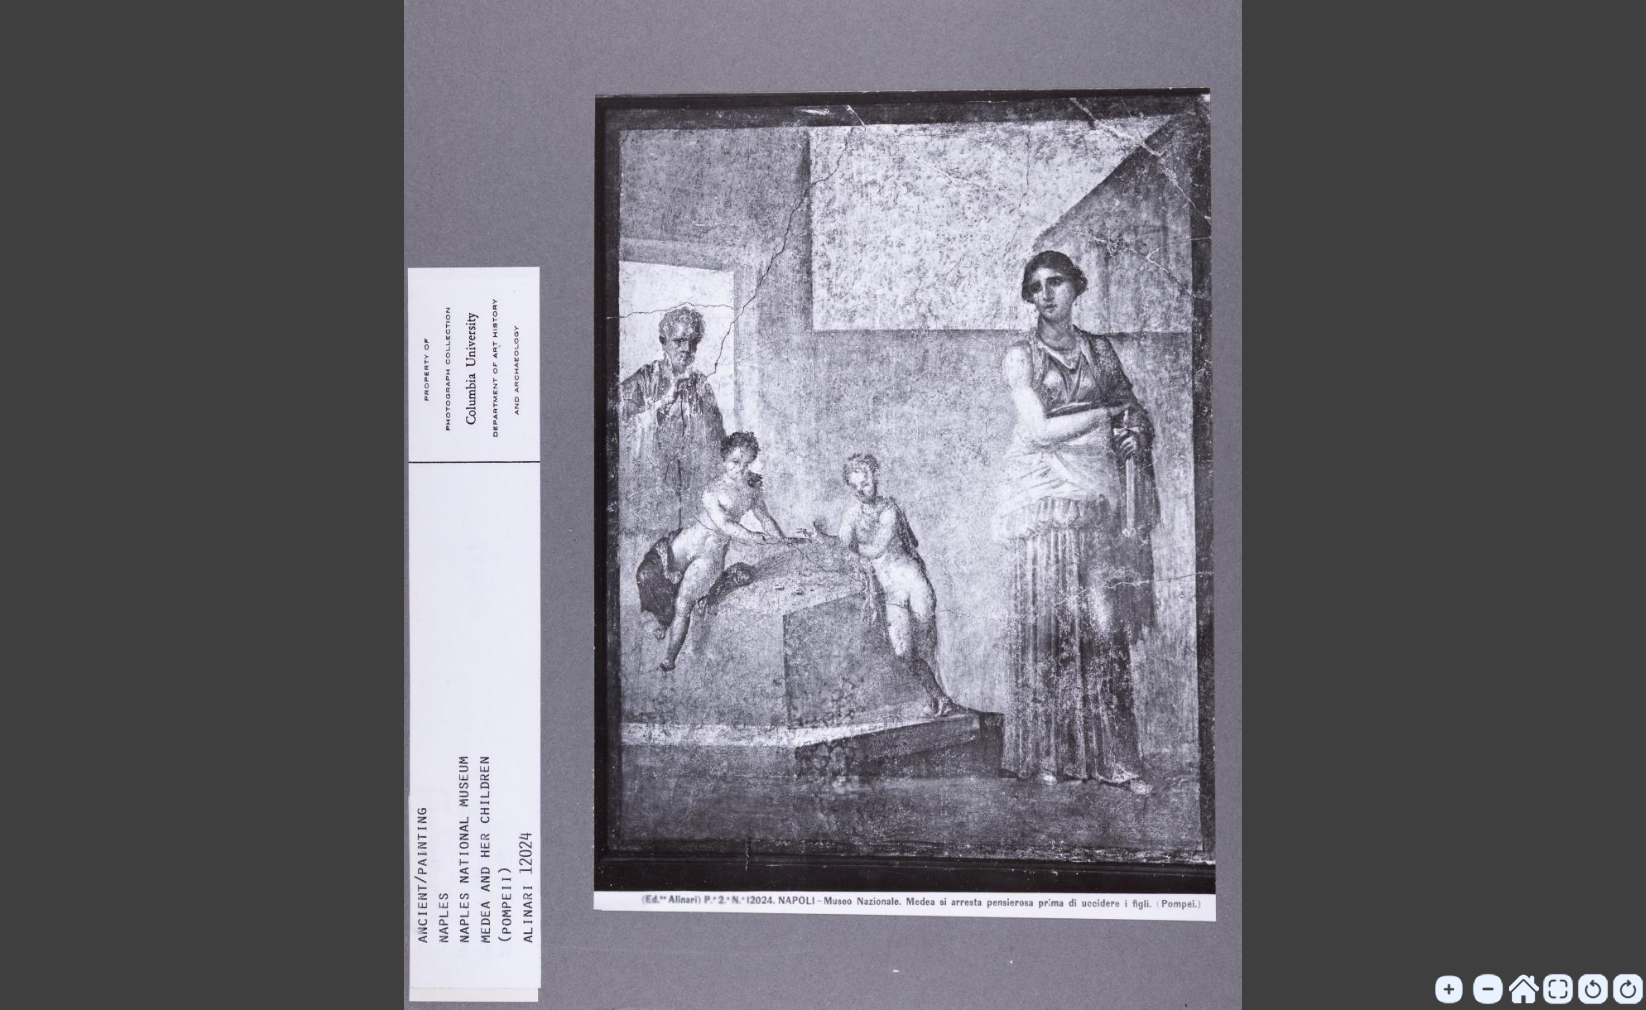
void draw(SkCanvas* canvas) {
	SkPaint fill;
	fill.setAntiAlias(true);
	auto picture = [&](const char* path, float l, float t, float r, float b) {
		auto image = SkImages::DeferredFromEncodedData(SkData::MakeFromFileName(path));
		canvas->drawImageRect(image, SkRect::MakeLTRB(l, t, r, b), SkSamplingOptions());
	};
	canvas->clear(0xFF3F3F3F);
	picture("image0.png", 404, 0, 1242, 1010);
	picture("image1.png", 1435, 975, 1463, 1004);
	picture("image2.png", 1435, 975, 1463, 1004);
	picture("image3.png", 1472, 973, 1504, 1005);
	picture("image4.png", 1473, 974, 1503, 1004);
	picture("image5.png", 1509, 974, 1539, 1004);
	picture("image6.png", 1509, 974, 1539, 1004);
	picture("image7.png", 1542, 973, 1574, 1005);
	picture("image8.png", 1543, 974, 1573, 1004);
	picture("image9.png", 1577, 973, 1609, 1005);
	picture("image10.png", 1578, 974, 1608, 1004);
	picture("image11.png", 1612, 973, 1644, 1005);
	picture("image12.png", 1613, 974, 1643, 1004);
}
